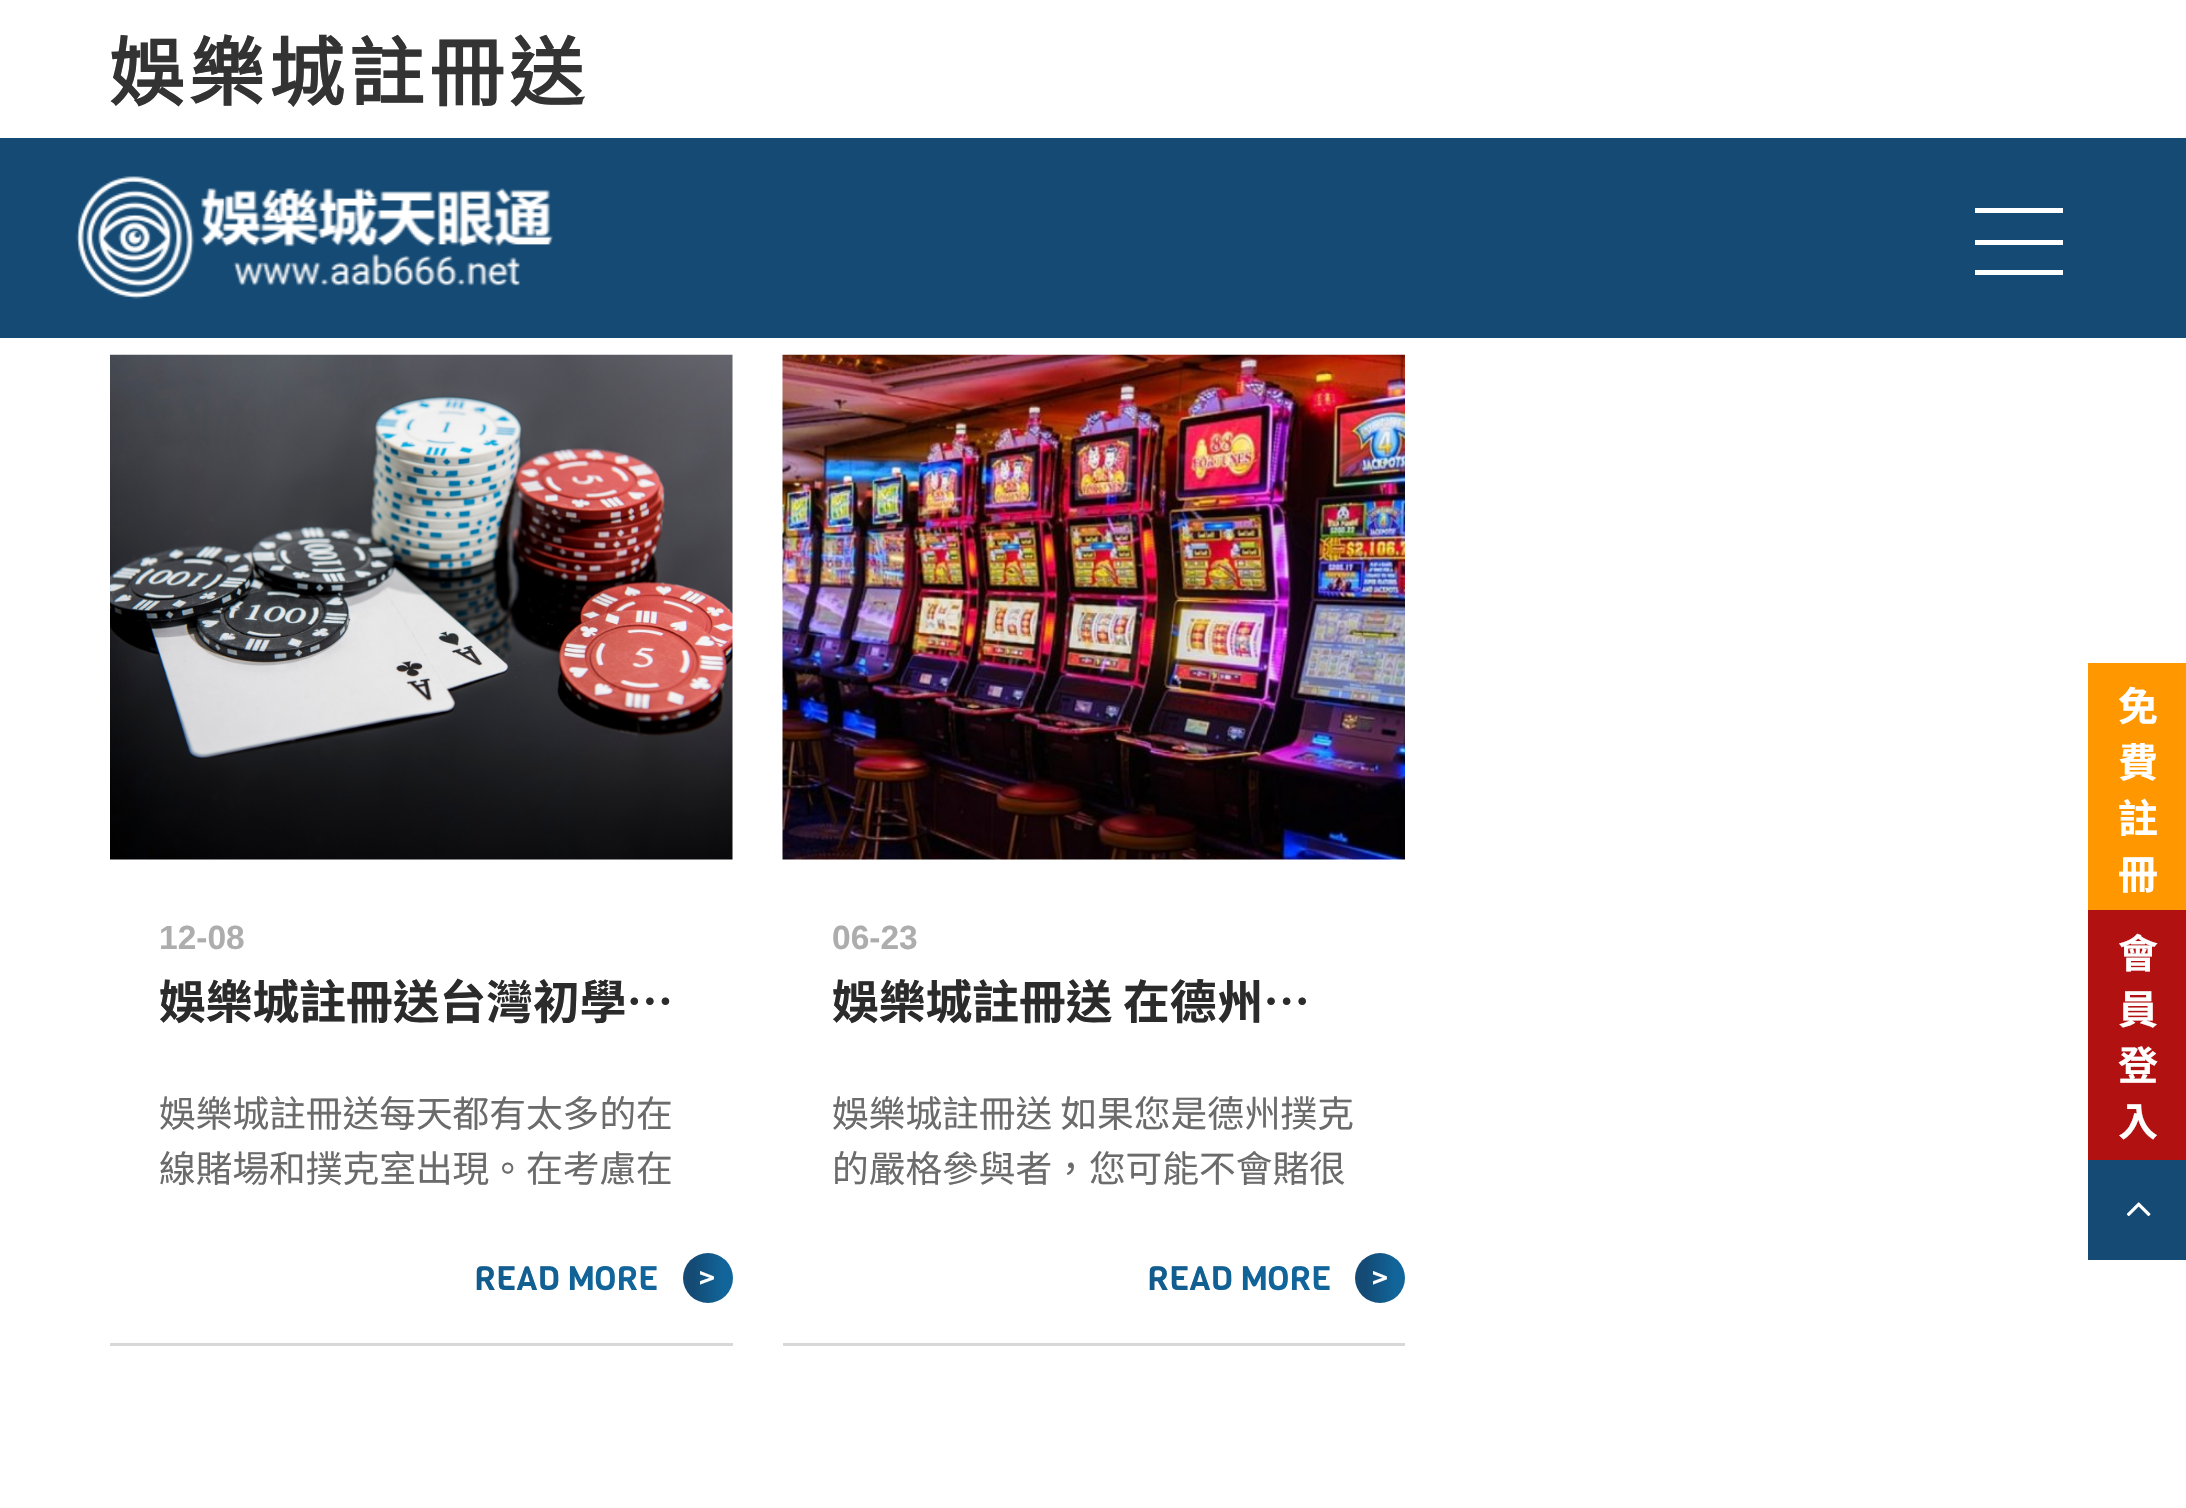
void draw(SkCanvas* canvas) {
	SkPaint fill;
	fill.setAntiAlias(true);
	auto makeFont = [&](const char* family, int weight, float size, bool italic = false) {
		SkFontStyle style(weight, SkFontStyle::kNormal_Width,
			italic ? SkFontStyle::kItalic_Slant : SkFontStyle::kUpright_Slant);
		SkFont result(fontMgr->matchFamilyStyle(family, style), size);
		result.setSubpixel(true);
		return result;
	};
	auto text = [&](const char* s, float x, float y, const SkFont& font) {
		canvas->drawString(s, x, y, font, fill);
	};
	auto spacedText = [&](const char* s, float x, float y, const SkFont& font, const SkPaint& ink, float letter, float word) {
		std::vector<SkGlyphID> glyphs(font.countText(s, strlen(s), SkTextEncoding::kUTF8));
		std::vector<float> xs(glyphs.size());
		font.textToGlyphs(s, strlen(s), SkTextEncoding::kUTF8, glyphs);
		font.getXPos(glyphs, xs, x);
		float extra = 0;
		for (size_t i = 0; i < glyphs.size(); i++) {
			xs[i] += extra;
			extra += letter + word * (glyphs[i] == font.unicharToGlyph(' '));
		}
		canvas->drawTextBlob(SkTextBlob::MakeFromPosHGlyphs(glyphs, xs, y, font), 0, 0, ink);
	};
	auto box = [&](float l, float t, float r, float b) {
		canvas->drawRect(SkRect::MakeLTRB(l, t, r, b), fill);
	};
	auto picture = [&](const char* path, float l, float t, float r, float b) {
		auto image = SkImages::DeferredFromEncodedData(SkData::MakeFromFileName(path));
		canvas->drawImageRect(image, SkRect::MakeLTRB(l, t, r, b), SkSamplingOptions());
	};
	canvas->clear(0xFFFFFFFF);
	picture("image0.png", 110, 354, 733, 860);
	{
		const SkColor colors[] = {0xFF144A74, 0xFF11659A};
		const float stops[] = {0.2f, 0.8f};
		const SkPoint ends[] = {{683, 1278}, {733, 1278}};
		fill.setShader(SkGradientShader::MakeLinear(ends, colors, stops, 2, SkTileMode::kClamp));
		fill.setAlpha(255);
	}
	canvas->drawCircle(708, 1278, 25, fill);
	fill.setShader(nullptr);
	fill.setColor(0xFFD8D8D8);
	box(110, 1343, 733, 1346);
	picture("image1.png", 782, 354, 1405, 860);
	{
		const SkColor colors[] = {0xFF144A74, 0xFF11659A};
		const float stops[] = {0.2f, 0.8f};
		const SkPoint ends[] = {{1355, 1278}, {1405, 1278}};
		fill.setShader(SkGradientShader::MakeLinear(ends, colors, stops, 2, SkTileMode::kClamp));
		fill.setAlpha(255);
	}
	canvas->drawCircle(1380, 1278, 25, fill);
	fill.setShader(nullptr);
	fill.setColor(0xFFD8D8D8);
	box(783, 1343, 1405, 1346);
	fill.setColor(0xFF144A74);
	box(0, 138, 2186, 338);
	picture("image2.png", 76, 176, 553, 299);
	fill.setColor(0xFFFFFFFF);
	box(1975, 208, 2063, 213);
	box(1975, 240, 2063, 245);
	box(1975, 270, 2063, 275);
	fill.setColor(0xFFFF9800);
	box(2088, 663, 2186, 910);
	fill.setColor(0xFFB11111);
	box(2088, 910, 2186, 1160);
	fill.setColor(0xFF144A74);
	box(2088, 1160, 2186, 1260);
	picture("image3.png", 2126, 1202, 2151, 1217);
	auto font1 = makeFont("Noto Sans CJK TC", 700, 75);
	fill.setColor(0xFF333333);
	spacedText("娛樂城註冊送", 109, 100, font1, fill, 5, 0);
	auto font2 = makeFont("Liberation Sans", 700, 33.5f);
	fill.setColor(0xFFADADAD);
	text("12-08", 159, 949, font2);
	auto font3 = makeFont("Noto Sans TC", 700, 46.75f);
	fill.setColor(0xFF2B2B2B);
	text("娛樂城註冊送台灣初學…", 159, 1019, font3);
	auto font4 = makeFont("Noto Sans TC", 400, 36.7f);
	fill.setColor(0xFF6B6B6B);
	text("娛樂城註冊送每天都有太多的在", 159, 1127, font4);
	text("線賭場和撲克室出現。在考慮在", 159, 1182, font4);
	auto font5 = makeFont("Viga", 400, 33.5f);
	{
		const SkColor colors[] = {0xFF144A74, 0xFF11659A};
		const float stops[] = {0.2f, 0.8f};
		const SkPoint ends[] = {{109, 1278}, {732, 1278}};
		fill.setShader(SkGradientShader::MakeLinear(ends, colors, stops, 2, SkTileMode::kClamp));
		fill.setAlpha(255);
	}
	text("READ MORE", 474, 1290, font5);
	auto font6 = makeFont("Noto Sans TC", 700, 27);
	fill.setShader(nullptr);
	fill.setColor(0xFFFFFFFF);
	text(">", 699, 1288, font6);
	fill.setColor(0xFFADADAD);
	text("06-23", 832, 949, font2);
	fill.setColor(0xFF2B2B2B);
	text("娛樂城註冊送 在德州…", 832, 1019, font3);
	fill.setColor(0xFF6B6B6B);
	text("娛樂城註冊送 如果您是德州撲克", 832, 1127, font4);
	text("的嚴格參與者，您可能不會賭很", 832, 1182, font4);
	{
		const SkColor colors[] = {0xFF144A74, 0xFF11659A};
		const float stops[] = {0.2f, 0.8f};
		const SkPoint ends[] = {{782, 1278}, {1405, 1278}};
		fill.setShader(SkGradientShader::MakeLinear(ends, colors, stops, 2, SkTileMode::kClamp));
		fill.setAlpha(255);
	}
	text("READ MORE", 1147, 1290, font5);
	fill.setShader(nullptr);
	fill.setColor(0xFFFFFFFF);
	text(">", 1372, 1288, font6);
	auto font7 = makeFont("Noto Sans TC", 700, 40);
	text("免", 2118, 721, font7);
	text("費", 2118, 777, font7);
	text("註", 2118, 833, font7);
	text("冊", 2118, 889, font7);
	text("會", 2118, 968, font7);
	text("員", 2118, 1024, font7);
	text("登", 2118, 1080, font7);
	text("入", 2118, 1136, font7);
}
